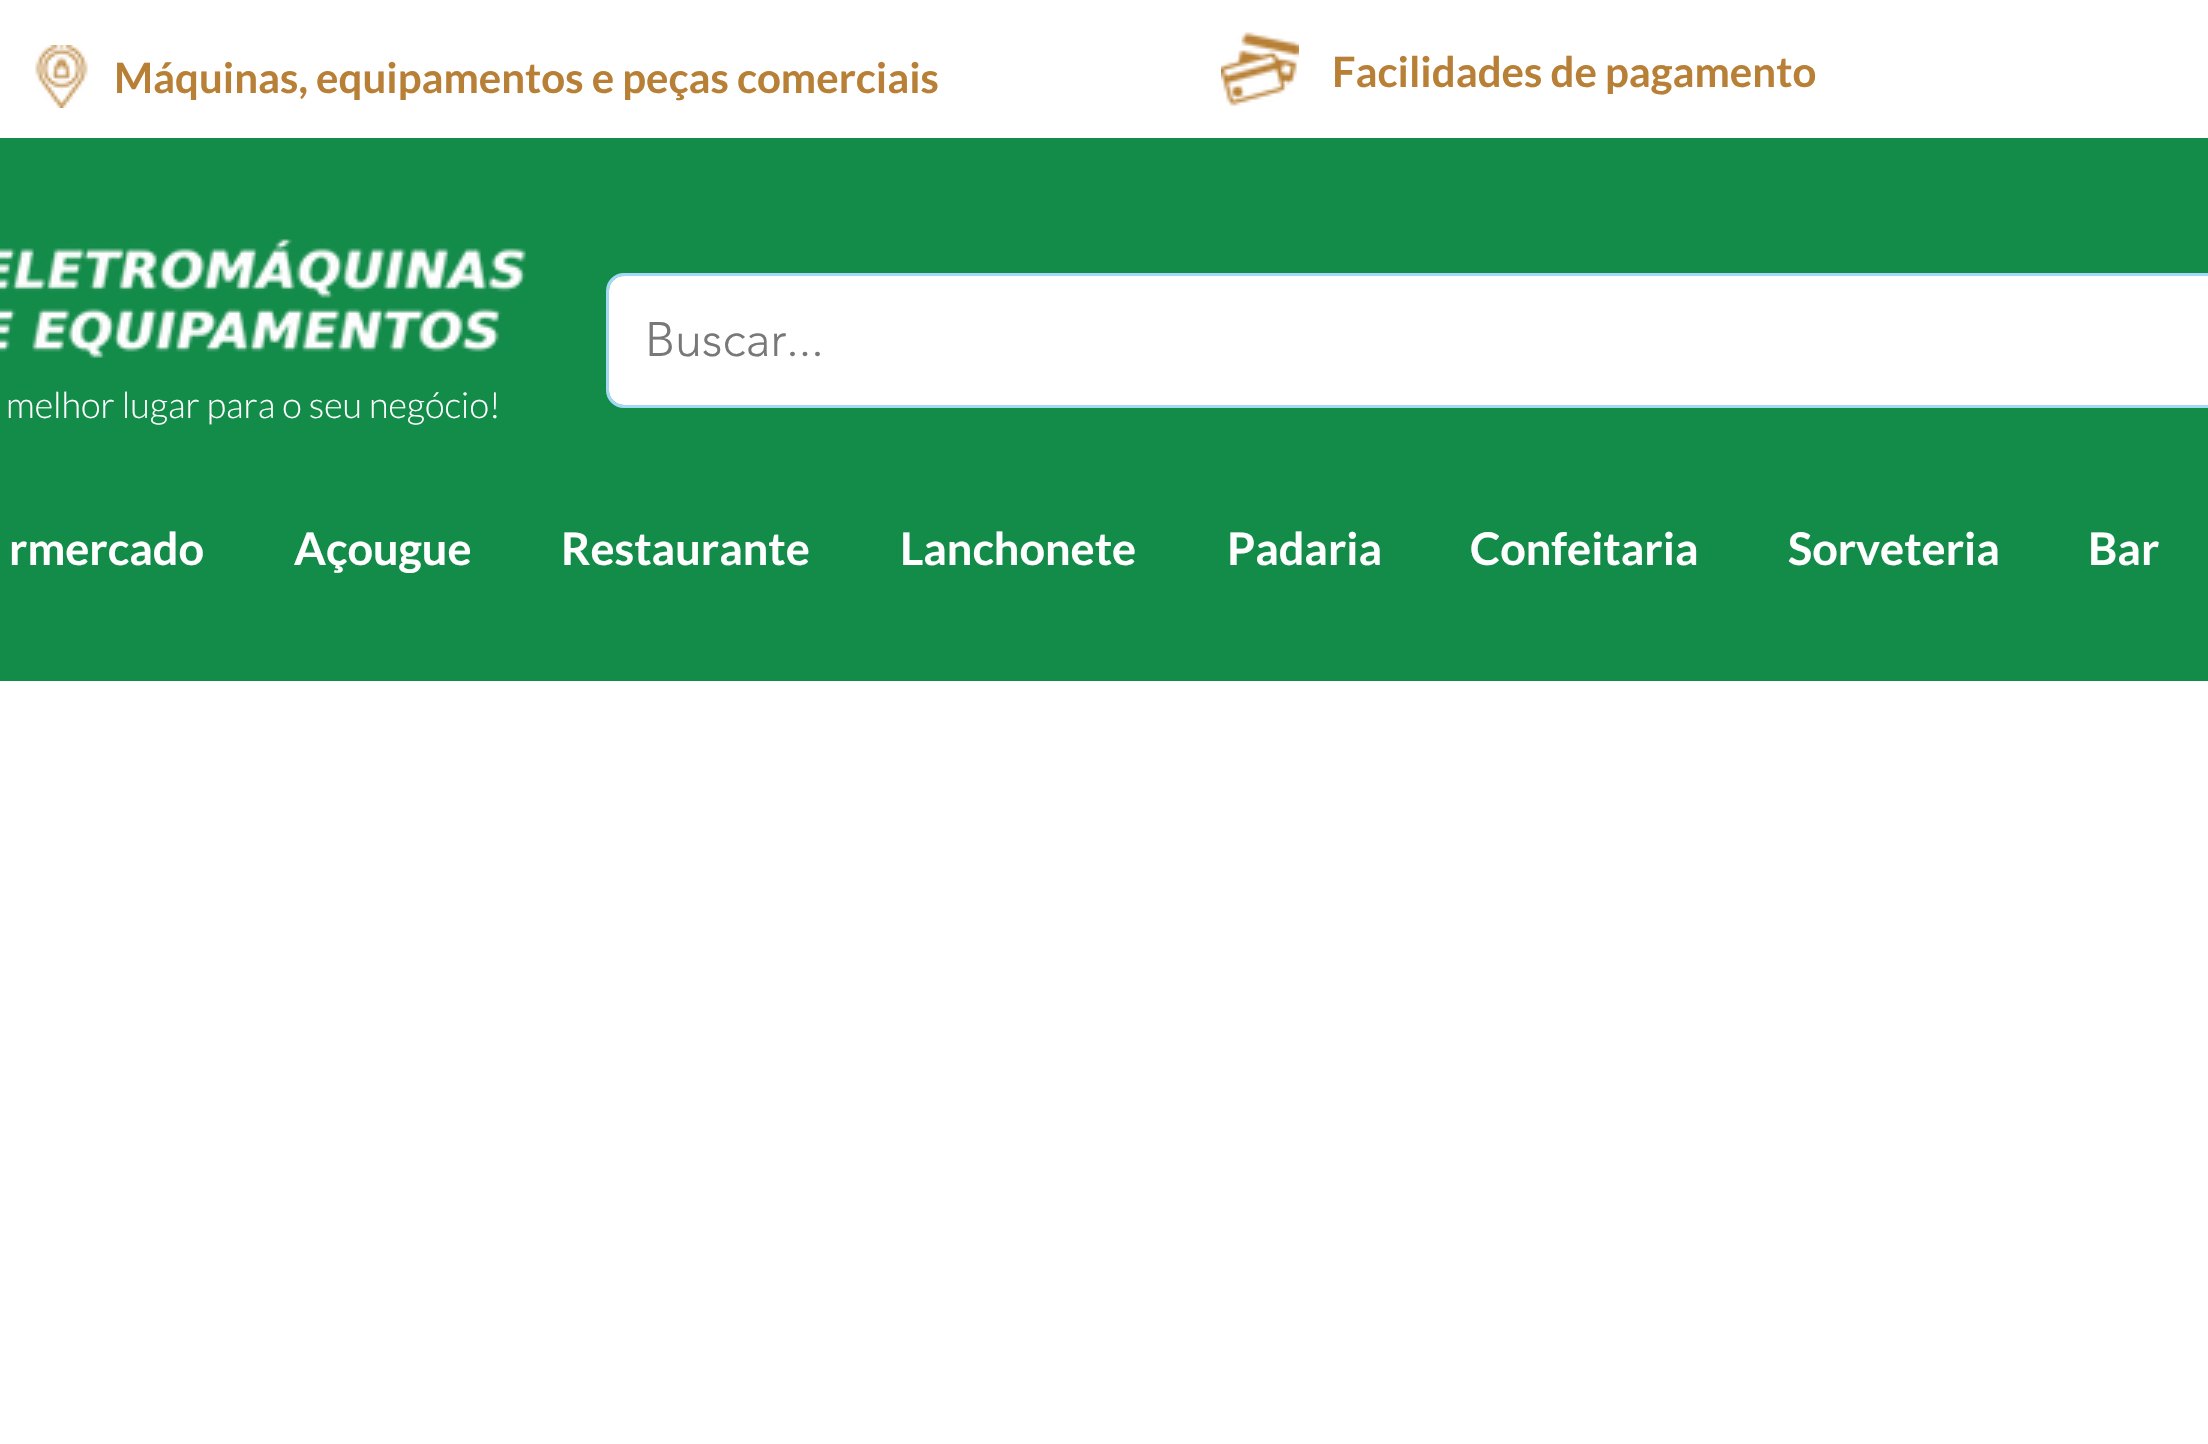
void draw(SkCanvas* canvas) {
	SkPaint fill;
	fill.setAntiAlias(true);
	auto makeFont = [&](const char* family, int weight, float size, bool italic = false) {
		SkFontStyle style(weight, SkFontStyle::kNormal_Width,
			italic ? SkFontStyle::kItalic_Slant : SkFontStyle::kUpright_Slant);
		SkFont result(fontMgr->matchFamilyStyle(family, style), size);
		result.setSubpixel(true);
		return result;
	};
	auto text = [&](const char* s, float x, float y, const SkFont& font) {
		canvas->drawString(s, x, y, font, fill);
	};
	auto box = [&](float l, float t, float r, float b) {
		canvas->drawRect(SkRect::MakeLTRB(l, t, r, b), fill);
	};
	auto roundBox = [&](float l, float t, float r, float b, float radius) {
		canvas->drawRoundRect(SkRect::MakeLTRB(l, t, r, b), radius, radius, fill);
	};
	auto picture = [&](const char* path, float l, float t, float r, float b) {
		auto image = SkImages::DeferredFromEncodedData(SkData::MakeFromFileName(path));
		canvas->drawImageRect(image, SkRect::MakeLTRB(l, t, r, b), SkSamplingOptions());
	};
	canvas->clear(0xFFFFFFFF);
	picture("image0.png", 35, 45, 88, 108);
	picture("image1.png", 1221, 32, 1299, 106);
	fill.setColor(0xFF138B49);
	box(0, 138, 2208, 681);
	picture("image2.png", 0, 239, 526, 358);
	fill.setStyle(SkPaint::kStroke_Style);
	fill.setStrokeWidth(3);
	fill.setColor(0xFFA3D9F6);
	canvas->drawRoundRect(SkRect::MakeLTRB(607.5f, 274.5f, 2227.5f, 406.5f), 16.5f, 16.5f, fill);
	fill.setStyle(SkPaint::kFill_Style);
	fill.setColor(0xFFFFFFFF);
	roundBox(609, 276, 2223, 405, 15);
	auto font1 = makeFont("Lato", 700, 42);
	fill.setColor(0xFFB88036);
	text("Máquinas, equipamentos e peças comerciais", 114, 93, font1);
	text("Facilidades de pagamento", 1332, 87, font1);
	auto font2 = makeFont("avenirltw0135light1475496", 300, 48);
	fill.setColor(0xFF787878);
	text("Buscar...", 645, 356, font2);
	auto font3 = makeFont("Lato", 300, 36);
	fill.setColor(0xFFFFFFFF);
	text("melhor lugar para o seu negócio!", 6, 418, font3);
	auto font4 = makeFont("Lato", 700, 45);
	text("rmercado", 9, 565, font4);
	text("Açougue", 294, 565, font4);
	text("Restaurante", 561, 565, font4);
	text("Lanchonete", 900, 565, font4);
	text("Padaria", 1227, 565, font4);
	text("Confeitaria", 1470, 565, font4);
	text("Sorveteria", 1788, 565, font4);
	text("Bar", 2088, 565, font4);
}
